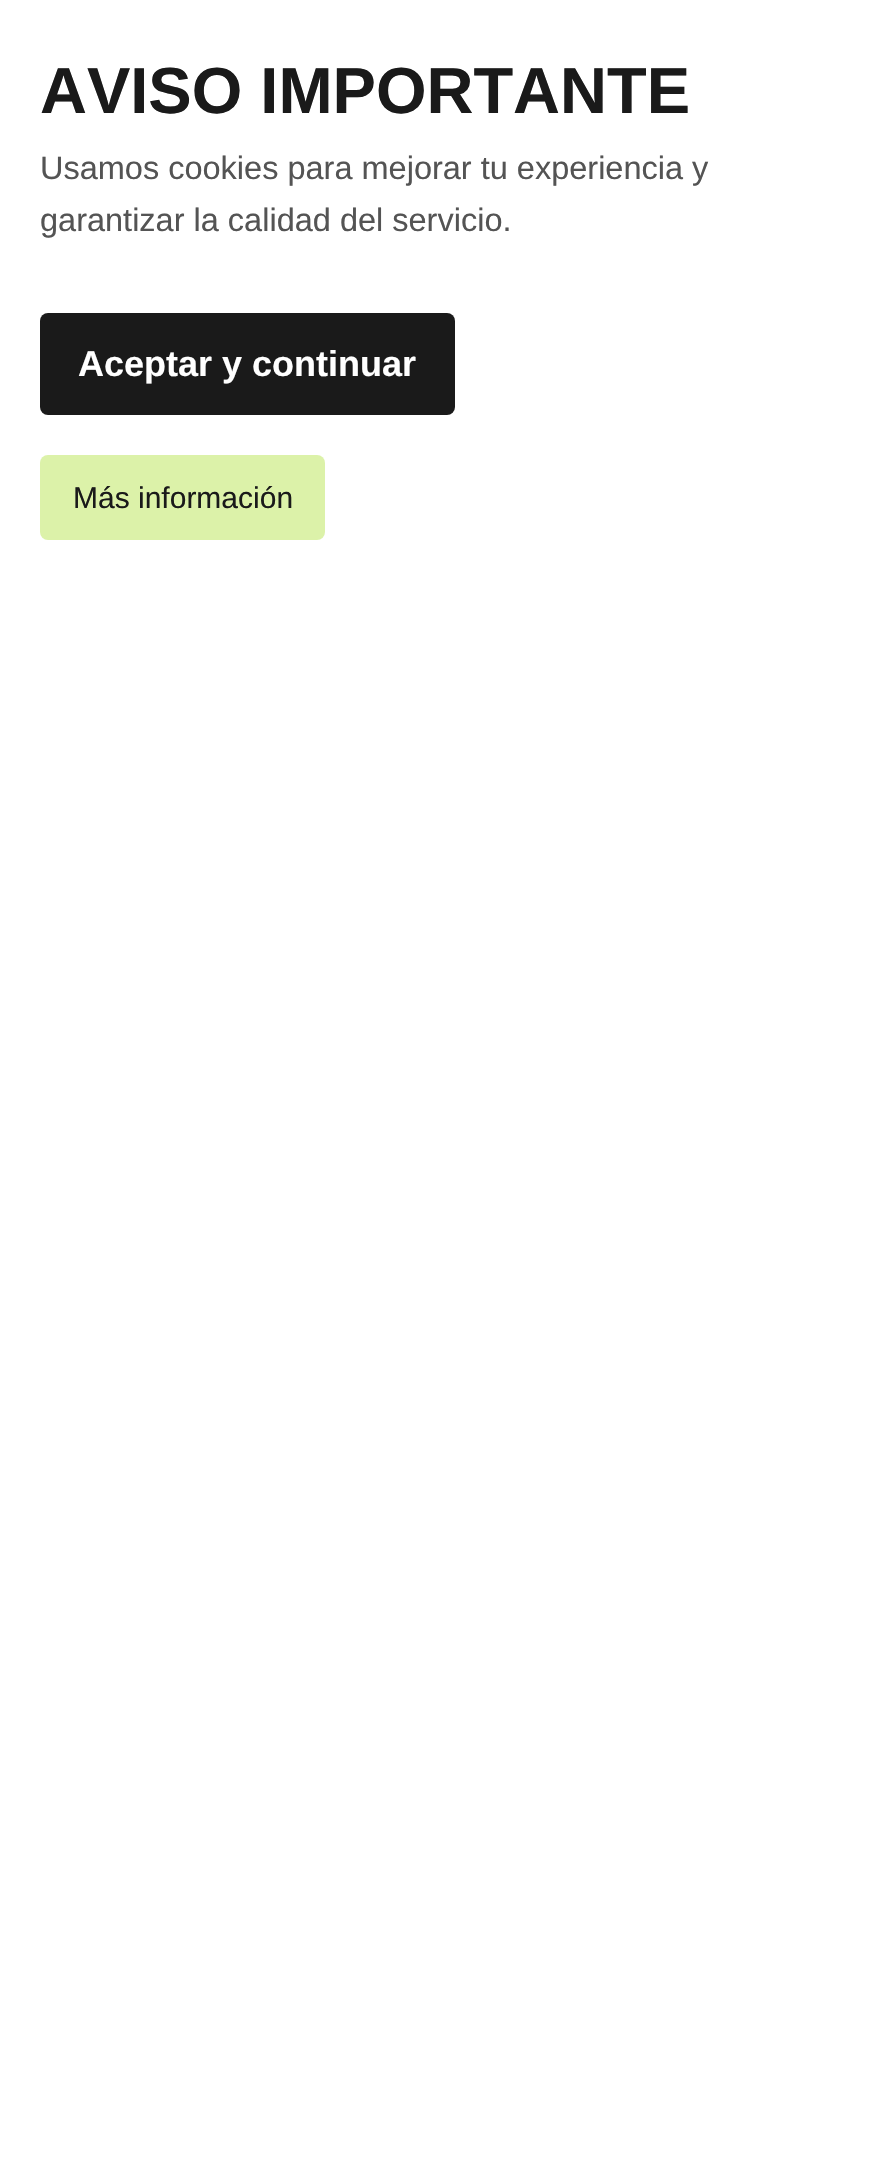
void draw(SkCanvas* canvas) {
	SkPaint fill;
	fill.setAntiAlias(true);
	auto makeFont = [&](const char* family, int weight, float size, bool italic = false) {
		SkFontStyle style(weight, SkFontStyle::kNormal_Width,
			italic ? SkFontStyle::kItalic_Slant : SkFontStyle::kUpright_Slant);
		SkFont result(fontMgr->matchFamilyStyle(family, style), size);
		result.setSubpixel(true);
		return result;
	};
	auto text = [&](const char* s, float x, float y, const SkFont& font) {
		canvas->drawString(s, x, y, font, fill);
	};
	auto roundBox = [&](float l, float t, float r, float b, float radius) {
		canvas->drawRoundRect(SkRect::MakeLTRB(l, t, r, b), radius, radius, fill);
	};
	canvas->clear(0xFFFFFFFF);
	fill.setColor(0xFF1A1A1A);
	roundBox(40, 313, 455, 415, 8);
	fill.setColor(0xFFDCF2A9);
	roundBox(40, 455, 325, 540, 8);
	auto font1 = makeFont("Liberation Sans", 700, 65);
	fill.setColor(0xFF1A1A1A);
	text("AVISO IMPORTANTE", 40, 113, font1);
	auto font2 = makeFont("Liberation Sans", 400, 32.5f);
	fill.setColor(0xFF545454);
	text("Usamos cookies para mejorar tu experiencia y", 40, 179, font2);
	text("garantizar la calidad del servicio.", 40, 231, font2);
	auto font3 = makeFont("Liberation Sans", 700, 36);
	fill.setColor(0xFFFFFFFF);
	text("Aceptar y continuar", 78, 376, font3);
	auto font4 = makeFont("Liberation Sans", 400, 30);
	fill.setColor(0xFF1A1A1A);
	text("Más información", 73, 508, font4);
}
